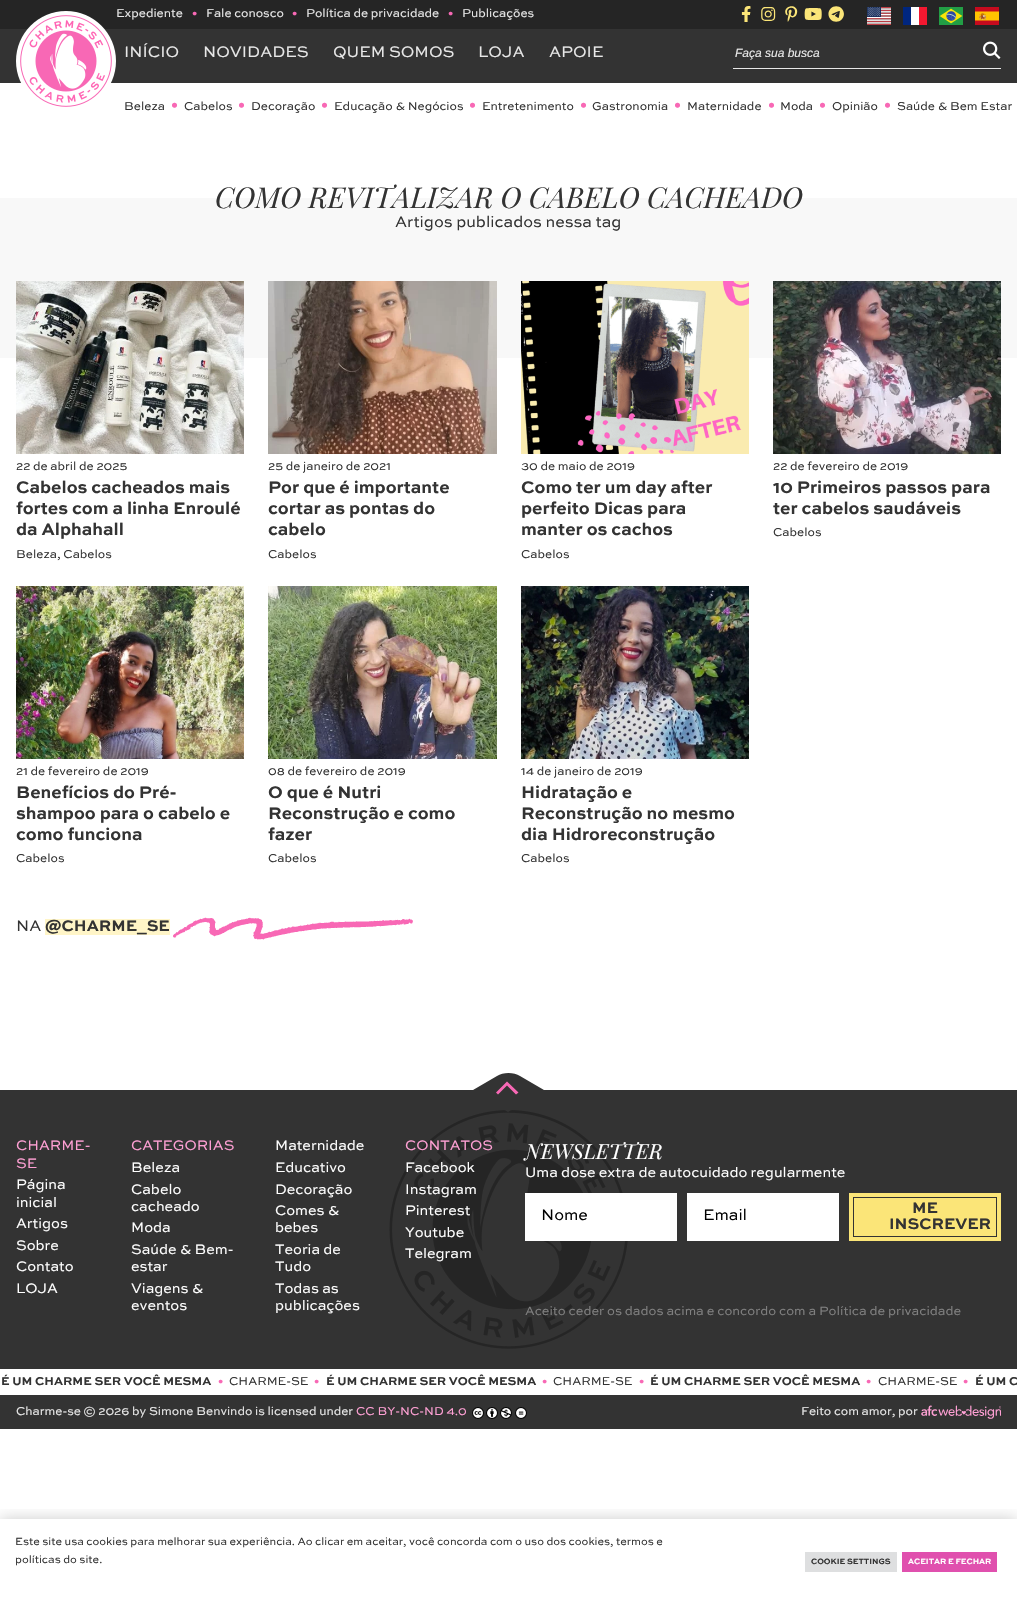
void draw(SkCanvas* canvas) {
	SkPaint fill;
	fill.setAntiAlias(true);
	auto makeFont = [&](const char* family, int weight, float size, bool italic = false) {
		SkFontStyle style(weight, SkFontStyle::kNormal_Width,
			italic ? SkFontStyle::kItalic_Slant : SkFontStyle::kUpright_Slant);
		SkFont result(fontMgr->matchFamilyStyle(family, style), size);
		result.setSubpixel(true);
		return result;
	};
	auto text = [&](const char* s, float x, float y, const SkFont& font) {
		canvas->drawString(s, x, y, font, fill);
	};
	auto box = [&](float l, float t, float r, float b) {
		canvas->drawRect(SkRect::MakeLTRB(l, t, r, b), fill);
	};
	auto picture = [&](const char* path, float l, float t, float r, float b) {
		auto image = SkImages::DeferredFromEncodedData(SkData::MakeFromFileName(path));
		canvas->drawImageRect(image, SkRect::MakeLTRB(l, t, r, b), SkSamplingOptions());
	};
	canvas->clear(0xFFFFFFFF);
	fill.setColor(0xFF252525);
	box(0, 0, 1017, 29);
	picture("image0.png", 741, 6, 751, 22);
	picture("image1.png", 761, 7, 776, 21);
	picture("image2.png", 785, 6, 798, 22);
	picture("image3.png", 804, 8, 822, 20);
	picture("image4.png", 828, 6, 844, 22);
	picture("image5.png", 867, 7, 891, 25);
	fill.setColor(0xFF00267F);
	box(903, 7, 911, 25);
	fill.setColor(0xFFFFFFFF);
	box(911, 7, 919, 25);
	fill.setColor(0xFFF31830);
	box(919, 7, 927, 25);
	picture("image6.png", 939, 7, 963, 25);
	picture("image7.png", 975, 7, 999, 25);
	fill.setColor(0xFF333333);
	box(0, 29, 1017, 83);
	picture("image8.png", 16, 11, 116, 107);
	fill.setColor(0xFFE8E8E8);
	box(733, 68, 1001, 69);
	picture("image9.png", 983, 41, 1001, 59);
	fill.setColor(0xFFF8F8F8);
	box(0, 198, 1017, 358);
	picture("image10.png", 16, 281, 244, 454);
	picture("image11.png", 268, 281, 497, 454);
	picture("image12.png", 521, 281, 749, 454);
	picture("image13.png", 773, 281, 1001, 454);
	picture("image14.png", 16, 586, 244, 759);
	picture("image15.png", 268, 586, 497, 759);
	picture("image16.png", 521, 586, 749, 759);
	fill.setColor(0xFFFFF5C7);
	box(45, 919, 170, 935);
	picture("image17.png", 173, 917, 413, 940);
	fill.setColor(0xFF333333);
	box(0, 1090, 1017, 1429);
	picture("image18.png", 389, 1110, 628, 1349);
	canvas->drawPath(SkPathBuilder().moveTo(473, 1090).lineTo(497, 1076).cubicTo(503, 1072, 514, 1072, 520, 1076).lineTo(544, 1090).lineTo(508, 1112).close().detach(), fill);
	fill.setColor(0xFFF868B5);
	canvas->drawPath(SkPathBuilder().moveTo(507, 1081.5f).lineTo(496, 1092.5f).lineTo(498, 1094.5f).lineTo(507, 1085.5f).lineTo(516, 1094.5f).lineTo(518.5f, 1092.5f).close().detach(), fill);
	fill.setColor(0xFFFFFFFF);
	box(525, 1193, 677, 1241);
	box(687, 1193, 839, 1241);
	fill.setColor(0xFFFBE578);
	box(849, 1193, 1001, 1241);
	fill.setStyle(SkPaint::kStroke_Style);
	fill.setStrokeWidth(1);
	fill.setColor(0xFF333333);
	canvas->drawRect(SkRect::MakeLTRB(853.5f, 1197.5f, 996.5f, 1236.5f), fill);
	fill.setStyle(SkPaint::kFill_Style);
	fill.setColor(0xFFFFFFFF);
	box(0, 1369, 1017, 1395);
	picture("image19.png", 472, 1407, 484, 1419);
	picture("image20.png", 486, 1407, 498, 1419);
	picture("image21.png", 500, 1407, 512, 1419);
	picture("image22.png", 515, 1407, 527, 1419);
	picture("image23.png", 921, 1405, 1001, 1419);
	canvas->save();
	canvas->clipRect(SkRect::MakeLTRB(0, 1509, 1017, 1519));
	fill.setColor(0x33000000);
	fill.setMaskFilter(SkMaskFilter::MakeBlur(kNormal_SkBlurStyle, 7.5f));
	canvas->drawRect(SkRect::MakeLTRB(0, 1519, 1017, 1605), fill);
	fill.setMaskFilter(nullptr);
	canvas->restore();
	fill.setColor(0xFFDEDFE0);
	box(805, 1552, 897, 1572);
	fill.setColor(0xFFE050AE);
	box(902, 1552, 997, 1572);
	auto font1 = makeFont("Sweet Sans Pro", 400, 12);
	fill.setColor(0xFFE8E8E8);
	text("Expediente", 116, 17, font1);
	fill.setColor(0xFFF868B5);
	text("•", 192, 17, font1);
	fill.setColor(0xFFE8E8E8);
	text("Fale conosco", 206, 17, font1);
	fill.setColor(0xFFF868B5);
	text("•", 292, 17, font1);
	fill.setColor(0xFFE8E8E8);
	text("Política de privacidade", 306, 17, font1);
	fill.setColor(0xFFF868B5);
	text("•", 448, 17, font1);
	fill.setColor(0xFFE8E8E8);
	text("Publicações", 462, 17, font1);
	auto font2 = makeFont("Sweet Sans Pro", 400, 16);
	text("INÍCIO", 124, 57, font2);
	text("NOVIDADES", 203, 57, font2);
	text("QUEM SOMOS", 333, 57, font2);
	text("LOJA", 478, 57, font2);
	text("APOIE", 549, 57, font2);
	auto font3 = makeFont("Liberation Sans", 400, 12, true);
	text("Faça sua busca", 735, 57, font3);
	fill.setColor(0xFF333333);
	text("Beleza", 124, 110, font1);
	fill.setColor(0xFFF868B5);
	text("•", 171, 110, font2);
	fill.setColor(0xFF333333);
	text("Cabelos", 184, 110, font1);
	fill.setColor(0xFFF868B5);
	text("•", 238, 110, font2);
	fill.setColor(0xFF333333);
	text("Decoração", 251, 110, font1);
	fill.setColor(0xFFF868B5);
	text("•", 321, 110, font2);
	fill.setColor(0xFF333333);
	text("Educação & Negócios", 334, 110, font1);
	fill.setColor(0xFFF868B5);
	text("•", 469, 110, font2);
	fill.setColor(0xFF333333);
	text("Entretenimento", 482, 110, font1);
	fill.setColor(0xFFF868B5);
	text("•", 580, 110, font2);
	fill.setColor(0xFF333333);
	text("Gastronomia", 592, 110, font1);
	fill.setColor(0xFFF868B5);
	text("•", 674, 110, font2);
	fill.setColor(0xFF333333);
	text("Maternidade", 687, 110, font1);
	fill.setColor(0xFFF868B5);
	text("•", 768, 110, font2);
	fill.setColor(0xFF333333);
	text("Moda", 780, 110, font1);
	fill.setColor(0xFFF868B5);
	text("•", 819, 110, font2);
	fill.setColor(0xFF333333);
	text("Opinião", 832, 110, font1);
	fill.setColor(0xFFF868B5);
	text("•", 884, 110, font2);
	fill.setColor(0xFF333333);
	text("Saúde & Bem Estar", 897, 110, font1);
	auto font4 = makeFont("Playfair Display", 400, 28.8f, true);
	text("COMO REVITALIZAR O CABELO CACHEADO", 215, 208, font4);
	text("Artigos publicados nessa tag", 395, 227, font2);
	text("22 de abril de 2025", 16, 470, font1);
	auto font5 = makeFont("Sweet Sans Pro", 700, 17.6f);
	text("Cabelos cacheados mais", 16, 493, font5);
	text("fortes com a linha Enroulé", 16, 514, font5);
	text("da Alphahall", 16, 535, font5);
	text("Beleza, Cabelos", 16, 558, font1);
	text("25 de janeiro de 2021", 268, 470, font1);
	text("Por que é importante", 268, 493, font5);
	text("cortar as pontas do", 268, 514, font5);
	text("cabelo", 268, 535, font5);
	text("Cabelos", 268, 558, font1);
	text("30 de maio de 2019", 521, 470, font1);
	text("Como ter um day after", 521, 493, font5);
	text("perfeito Dicas para", 521, 514, font5);
	text("manter os cachos", 521, 535, font5);
	text("Cabelos", 521, 558, font1);
	text("22 de fevereiro de 2019", 773, 470, font1);
	text("10 Primeiros passos para", 773, 493, font5);
	text("ter cabelos saudáveis", 773, 514, font5);
	text("Cabelos", 773, 536, font1);
	text("21 de fevereiro de 2019", 16, 775, font1);
	text("Benefícios do Pré-", 16, 798, font5);
	text("shampoo para o cabelo e", 16, 819, font5);
	text("como funciona", 16, 840, font5);
	text("Cabelos", 16, 862, font1);
	text("08 de fevereiro de 2019", 268, 775, font1);
	text("O que é Nutri", 268, 798, font5);
	text("Reconstrução e como", 268, 819, font5);
	text("fazer", 268, 840, font5);
	text("Cabelos", 268, 862, font1);
	text("14 de janeiro de 2019", 521, 775, font1);
	text("Hidratação e", 521, 798, font5);
	text("Reconstrução no mesmo", 521, 819, font5);
	text("dia Hidroreconstrução", 521, 840, font5);
	text("Cabelos", 521, 862, font1);
	text("NA", 16, 931, font2);
	auto font6 = makeFont("Sweet Sans Pro", 700, 16);
	text("@CHARME_SE", 45, 931, font6);
	auto font7 = makeFont("Sweet Sans Pro", 400, 14.4f);
	fill.setColor(0xFFFFA0D4);
	text("CHARME-", 16, 1150, font7);
	text("SE", 16, 1168, font7);
	fill.setColor(0xFFFFFFFF);
	text("Página", 16, 1189, font7);
	text("inicial", 16, 1207, font7);
	text("Artigos", 16, 1228, font7);
	text("Sobre", 16, 1250, font7);
	text("Contato", 16, 1271, font7);
	text("LOJA", 16, 1293, font7);
	fill.setColor(0xFFFFA0D4);
	text("CATEGORIAS", 131, 1150, font7);
	fill.setColor(0xFFFFFFFF);
	text("Beleza", 131, 1172, font7);
	text("Cabelo", 131, 1194, font7);
	text("cacheado", 131, 1211, font7);
	text("Moda", 131, 1232, font7);
	text("Saúde & Bem-", 131, 1254, font7);
	text("estar", 131, 1271, font7);
	text("Viagens &", 131, 1293, font7);
	text("eventos", 131, 1310, font7);
	text("Maternidade", 275, 1150, font7);
	text("Educativo", 275, 1172, font7);
	text("Decoração", 275, 1194, font7);
	text("Comes &", 275, 1215, font7);
	text("bebes", 275, 1232, font7);
	text("Teoria de", 275, 1254, font7);
	text("Tudo", 275, 1271, font7);
	text("Todas as", 275, 1293, font7);
	text("publicações", 275, 1310, font7);
	fill.setColor(0xFFFFA0D4);
	text("CONTATOS", 405, 1150, font7);
	fill.setColor(0xFFFFFFFF);
	text("Facebook", 405, 1172, font7);
	text("Instagram", 405, 1194, font7);
	text("Pinterest", 405, 1215, font7);
	text("Youtube", 405, 1237, font7);
	text("Telegram", 405, 1258, font7);
	auto font8 = makeFont("Playfair Display", 400, 20.75f, true);
	text("NEWSLETTER", 525, 1159, font8);
	text("Uma dose extra de autocuidado regularmente", 525, 1177, font7);
	fill.setColor(0xFF000000);
	text("Nome", 541, 1220, font2);
	text("Email", 703, 1220, font2);
	fill.setColor(0xFF333333);
	text("ME", 912, 1213, font6);
	text("INSCREVER", 889, 1229, font6);
	auto font9 = makeFont("Sweet Sans Pro", 400, 12.8f);
	fill.setColor(0xFF808080);
	text("Aceito ceder os dados acima e concordo com a Política de privacidade", 525, 1315, font9);
	auto font10 = makeFont("Sweet Sans Pro", 700, 12);
	fill.setColor(0xFF333333);
	text("É UM CHARME SER VOCÊ MESMA", 1, 1385, font10);
	fill.setColor(0xFFF868B5);
	text("•", 218, 1385, font1);
	fill.setColor(0xFF333333);
	text("CHARME-SE", 229, 1385, font1);
	fill.setColor(0xFFF868B5);
	text("•", 314, 1385, font1);
	fill.setColor(0xFF333333);
	text("É UM CHARME SER VOCÊ MESMA", 326, 1385, font10);
	fill.setColor(0xFFF868B5);
	text("•", 542, 1385, font1);
	fill.setColor(0xFF333333);
	text("CHARME-SE", 553, 1385, font1);
	fill.setColor(0xFFF868B5);
	text("•", 639, 1385, font1);
	fill.setColor(0xFF333333);
	text("É UM CHARME SER VOCÊ MESMA", 650, 1385, font10);
	fill.setColor(0xFFF868B5);
	text("•", 866, 1385, font1);
	fill.setColor(0xFF333333);
	text("CHARME-SE", 878, 1385, font1);
	fill.setColor(0xFFF868B5);
	text("•", 963, 1385, font1);
	fill.setColor(0xFF333333);
	text("É UM C", 975, 1385, font10);
	fill.setColor(0xFFE8E8E8);
	text("Charme-se © 2026 by Simone Benvindo is licensed under", 16, 1415, font1);
	fill.setColor(0xFFFFA0D4);
	text("CC BY-NC-ND 4.0", 356, 1415, font1);
	fill.setColor(0xFFE8E8E8);
	text("Feito com amor, por", 801, 1415, font1);
	auto font11 = makeFont("Sweet Sans Pro", 400, 11);
	fill.setColor(0xFF333333);
	text("Este site usa cookies para melhorar sua experiência. Ao clicar em aceitar, você concorda com o uso dos cookies, termos e", 15, 1545, font11);
	text("políticas do site.", 15, 1563, font11);
	auto font12 = makeFont("Sweet Sans Pro", 700, 8);
	text("COOKIE SETTINGS", 811, 1564, font12);
	fill.setColor(0xFFFFFFFF);
	text("ACEITAR E FECHAR", 908, 1564, font12);
}
